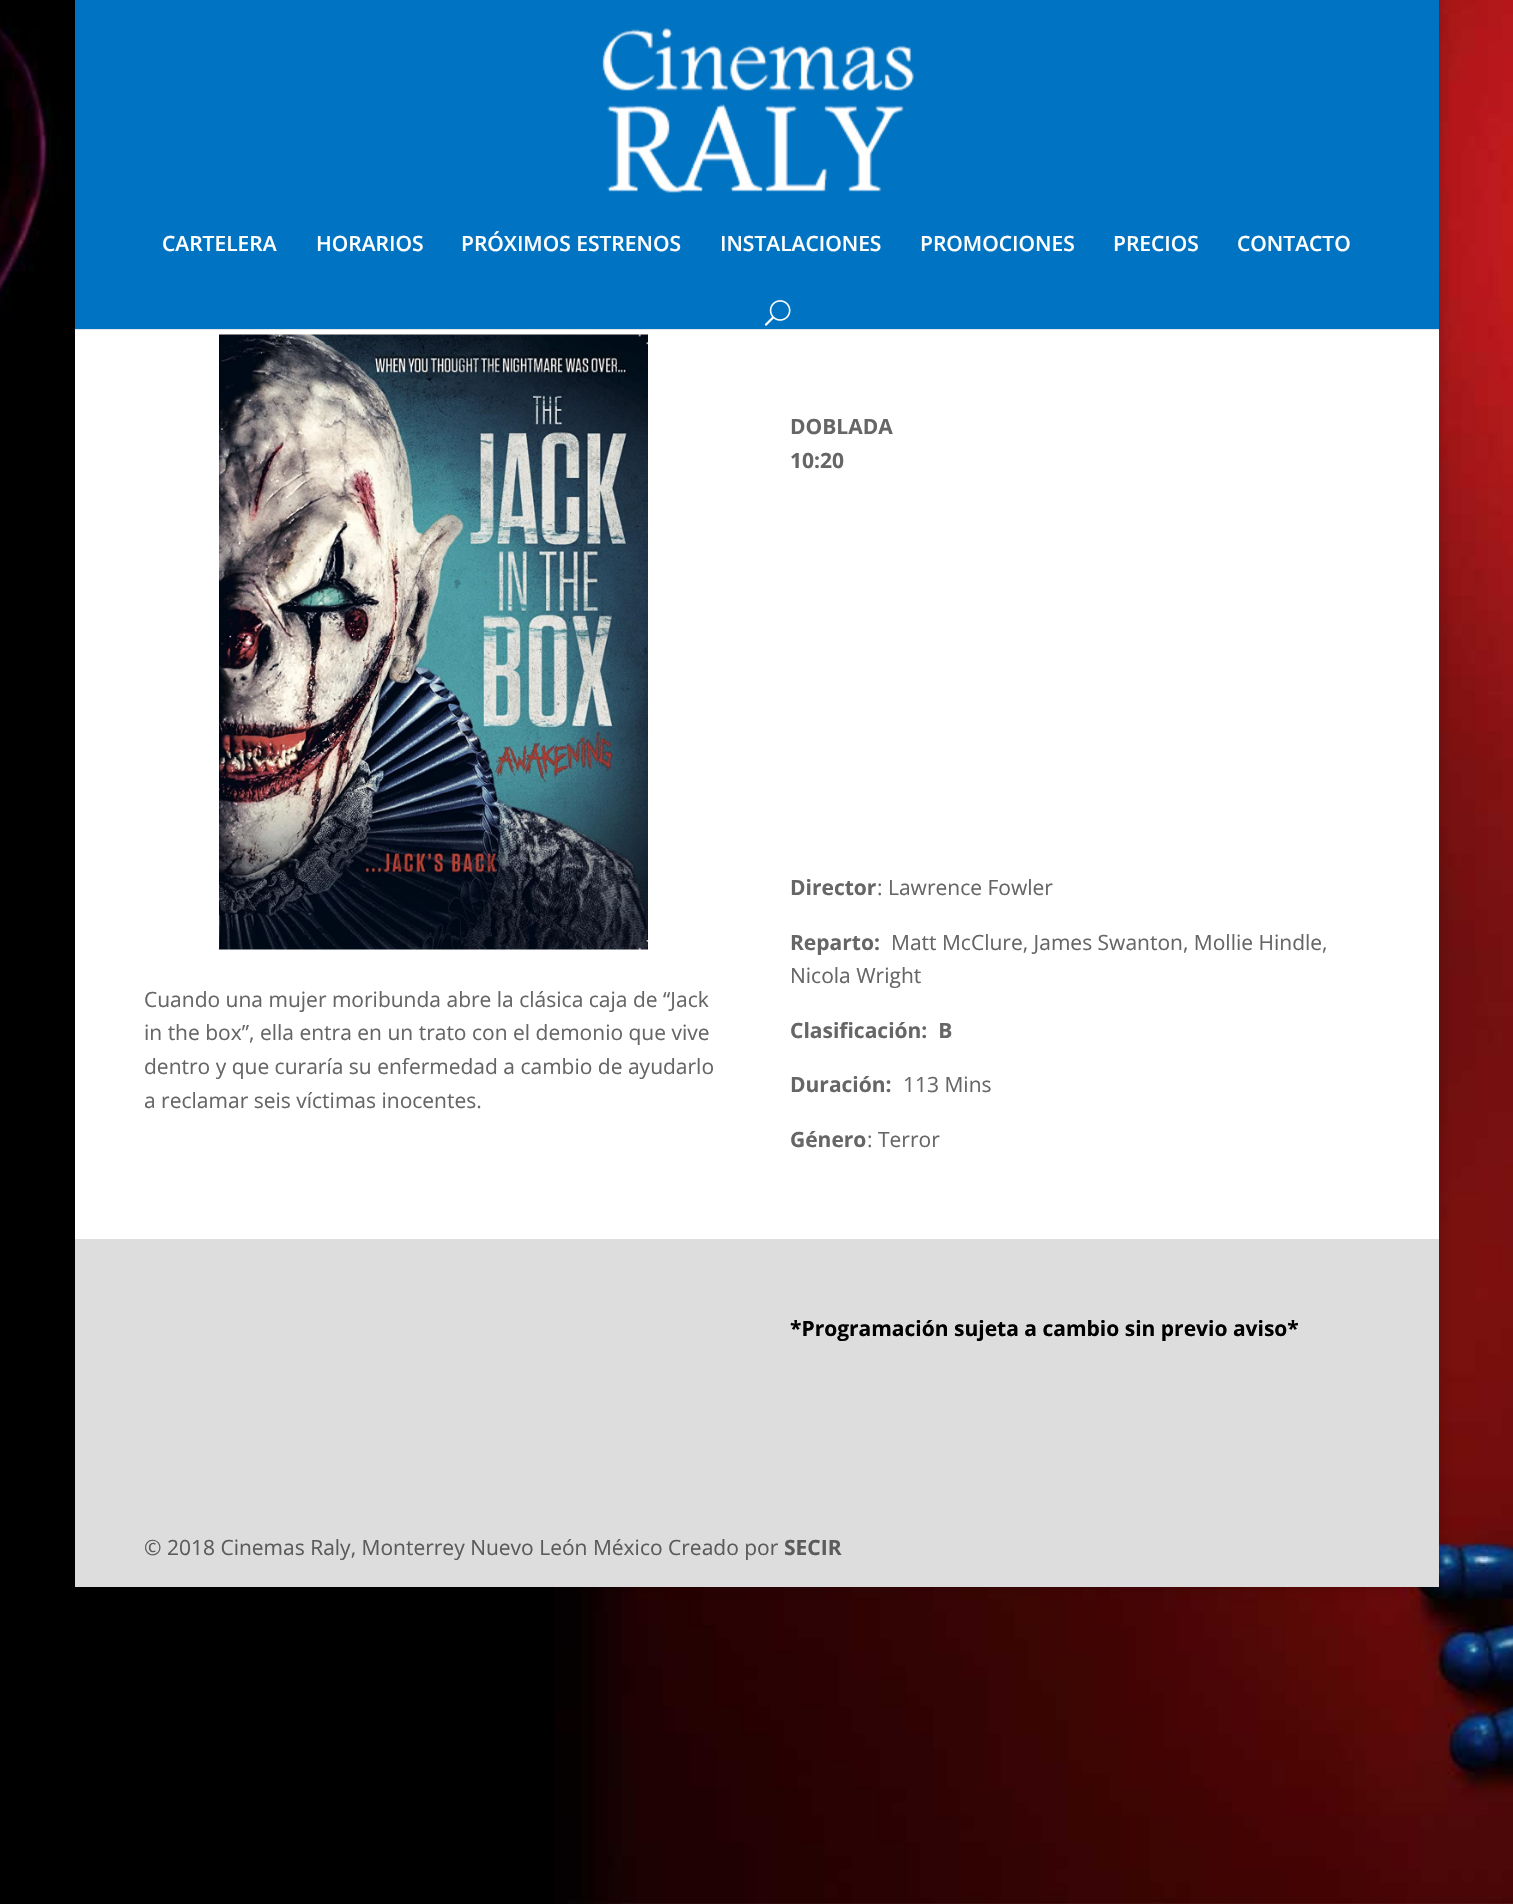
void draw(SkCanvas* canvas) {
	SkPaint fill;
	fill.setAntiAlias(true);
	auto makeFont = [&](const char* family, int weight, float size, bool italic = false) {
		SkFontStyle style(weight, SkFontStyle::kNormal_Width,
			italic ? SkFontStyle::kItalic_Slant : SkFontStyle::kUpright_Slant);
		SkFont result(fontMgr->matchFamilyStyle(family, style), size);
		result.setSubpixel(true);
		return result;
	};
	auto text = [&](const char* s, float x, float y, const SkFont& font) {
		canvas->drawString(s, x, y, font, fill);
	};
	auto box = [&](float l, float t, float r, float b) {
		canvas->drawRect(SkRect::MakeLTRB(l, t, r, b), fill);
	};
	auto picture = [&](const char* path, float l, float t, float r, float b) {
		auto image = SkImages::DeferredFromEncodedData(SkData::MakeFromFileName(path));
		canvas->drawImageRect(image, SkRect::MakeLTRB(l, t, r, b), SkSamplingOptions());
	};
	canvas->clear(0xFFFFFFFF);
	picture("image0.png", 0, 0, 1513, 1904);
	fill.setColor(0x33000000);
	fill.setMaskFilter(SkMaskFilter::MakeBlur(kNormal_SkBlurStyle, 7.5f));
	canvas->drawRect(SkRect::MakeLTRB(75, 0, 1439, 1587), fill);
	fill.setMaskFilter(nullptr);
	fill.setColor(0xFFFFFFFF);
	box(75, 329, 1439, 1239);
	fill.setColor(0x1A000000);
	canvas->drawPath(SkPathBuilder().moveTo(75, 328).lineTo(75, 330).lineTo(1439, 330).lineTo(1439, 2).lineTo(1438, 2).lineTo(1438, 328).close().detach(), fill);
	fill.setColor(0xFF0074C2);
	box(75, 0, 1439, 329);
	picture("image1.png", 602, 27, 914, 193);
	picture("image2.png", 764, 300, 791, 326);
	picture("image3.png", 219, 334, 648, 950);
	fill.setColor(0xFFDDDDDD);
	box(75, 1239, 1439, 1587);
	auto font1 = makeFont("Open Sans", 600, 21);
	fill.setColor(0xFFFFFFFF);
	text("CARTELERA", 162, 251, font1);
	text("HORARIOS", 316, 251, font1);
	text("PRÓXIMOS ESTRENOS", 461, 251, font1);
	text("INSTALACIONES", 720, 251, font1);
	text("PROMOCIONES", 920, 251, font1);
	text("PRECIOS", 1113, 251, font1);
	text("CONTACTO", 1237, 251, font1);
	auto font2 = makeFont("Open Sans", 400, 21);
	fill.setColor(0xFF666666);
	text("Cuando una mujer moribunda abre la clásica caja de “Jack", 144, 1007, font2);
	text("in the box”, ella entra en un trato con el demonio que vive", 144, 1040, font2);
	text("dentro y que curaría su enfermedad a cambio de ayudarlo", 144, 1074, font2);
	text("a reclamar seis víctimas inocentes.", 144, 1108, font2);
	auto font3 = makeFont("Open Sans", 700, 21);
	text("DOBLADA", 790, 434, font3);
	text("10:20", 790, 468, font3);
	text("Director", 790, 895, font3);
	text(": Lawrence Fowler", 877, 895, font2);
	text("Reparto:", 790, 950, font3);
	text("Matt McClure, James Swanton, Mollie Hindle,", 891, 950, font2);
	text("Nicola Wright", 790, 983, font2);
	text("Clasificación:  B", 790, 1038, font3);
	text("Duración:", 790, 1092, font3);
	text("113 Mins", 903, 1092, font2);
	text("Género", 790, 1147, font3);
	text(": Terror", 867, 1147, font2);
	fill.setColor(0xFF000000);
	text("*Programación sujeta a cambio sin previo aviso*", 790, 1336, font3);
	fill.setColor(0xFF5B5B5B);
	text("© 2018 Cinemas Raly, Monterrey Nuevo León México Creado por", 144, 1555, font2);
	text("SECIR", 784, 1555, font3);
}
